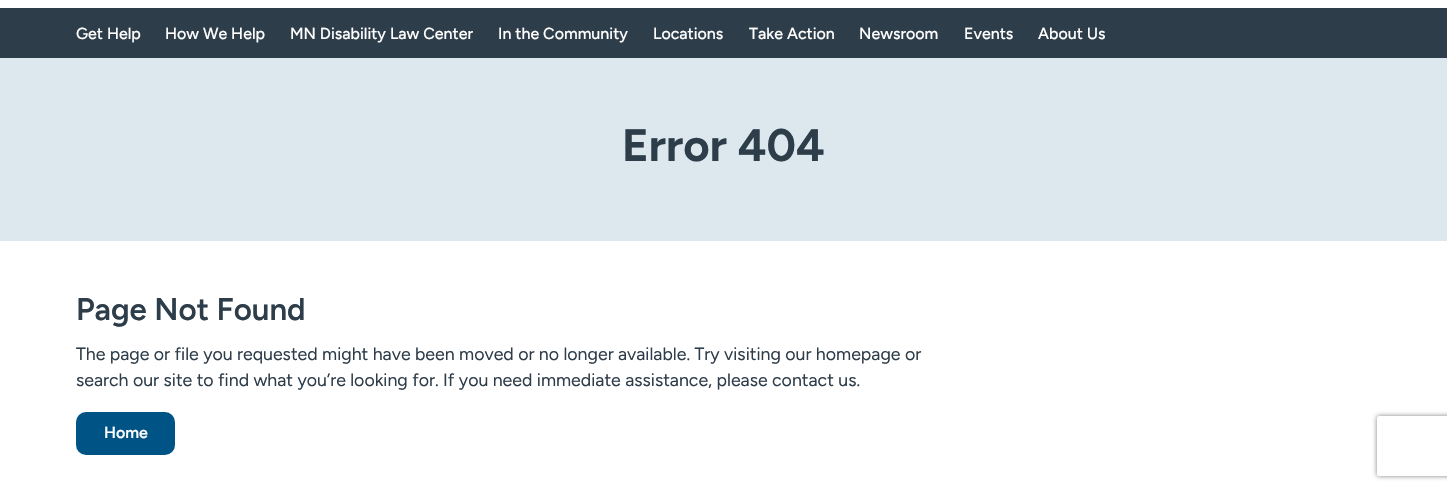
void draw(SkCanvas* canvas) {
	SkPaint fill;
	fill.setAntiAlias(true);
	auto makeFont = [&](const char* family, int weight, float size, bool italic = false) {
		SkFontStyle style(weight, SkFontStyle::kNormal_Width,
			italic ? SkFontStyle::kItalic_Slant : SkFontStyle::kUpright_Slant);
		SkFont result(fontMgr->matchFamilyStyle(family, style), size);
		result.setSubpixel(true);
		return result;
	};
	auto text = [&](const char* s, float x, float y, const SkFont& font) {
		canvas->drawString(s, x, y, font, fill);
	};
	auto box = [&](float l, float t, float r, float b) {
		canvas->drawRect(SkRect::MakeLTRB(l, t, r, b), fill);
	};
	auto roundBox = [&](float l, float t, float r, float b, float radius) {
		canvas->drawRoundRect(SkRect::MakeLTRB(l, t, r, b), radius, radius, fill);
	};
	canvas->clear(0xFFFFFFFF);
	fill.setColor(0xFF2E3D4A);
	box(0, 8, 1447, 58);
	fill.setColor(0xFFDCE7EE);
	box(0, 58, 1447, 241);
	fill.setColor(0xFF005485);
	roundBox(76, 412, 175, 455, 10);
	canvas->save();
	canvas->clipPath(SkPathBuilder(SkPathFillType::kEvenOdd).moveTo(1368, 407).lineTo(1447, 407).lineTo(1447, 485).lineTo(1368, 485).close().moveTo(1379, 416).lineTo(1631, 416).cubicTo(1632, 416, 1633, 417, 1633, 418).lineTo(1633, 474).cubicTo(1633, 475, 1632, 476, 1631, 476).lineTo(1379, 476).cubicTo(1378, 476, 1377, 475, 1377, 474).lineTo(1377, 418).cubicTo(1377, 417, 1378, 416, 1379, 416).close().detach(), true);
	fill.setColor(0xFF808080);
	fill.setMaskFilter(SkMaskFilter::MakeBlur(kNormal_SkBlurStyle, 2.5f));
	canvas->drawRoundRect(SkRect::MakeLTRB(1377, 416, 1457, 476), 2, 2, fill);
	fill.setMaskFilter(nullptr);
	canvas->restore();
	auto font1 = makeFont("Figtree", 500, 16);
	fill.setColor(0xFFFFFFFF);
	text("Get Help", 76, 39, font1);
	text("How We Help", 165, 39, font1);
	text("MN Disability Law Center", 290, 39, font1);
	text("In the Community", 498, 39, font1);
	text("Locations", 653, 39, font1);
	text("Take Action", 749, 39, font1);
	text("Newsroom", 859, 39, font1);
	text("Events", 964, 39, font1);
	text("About Us", 1038, 39, font1);
	auto font2 = makeFont("Figtree", 700, 45.5f);
	fill.setColor(0xFF2E3D4A);
	text("Error 404", 622, 161, font2);
	auto font3 = makeFont("Figtree", 600, 31.25f);
	text("Page Not Found", 76, 320, font3);
	auto font4 = makeFont("Figtree", 400, 17.75f);
	text("The page or file you requested might have been moved or no longer available. Try visiting our homepage or", 76, 360, font4);
	text("search our site to find what you’re looking for. If you need immediate assistance, please contact us.", 76, 386, font4);
	auto font5 = makeFont("Figtree", 600, 16);
	fill.setColor(0xFFFFFFFF);
	text("Home", 104, 438, font5);
}
